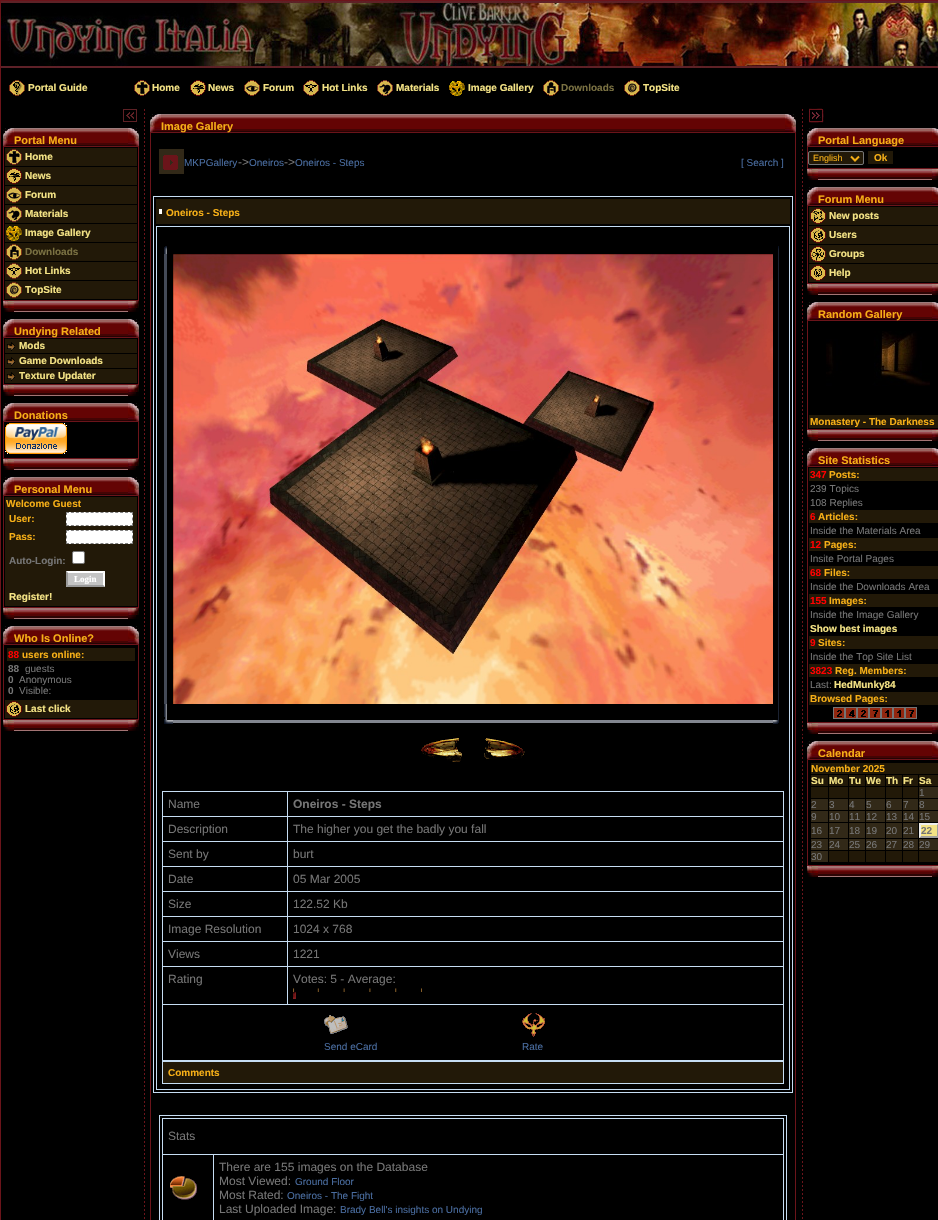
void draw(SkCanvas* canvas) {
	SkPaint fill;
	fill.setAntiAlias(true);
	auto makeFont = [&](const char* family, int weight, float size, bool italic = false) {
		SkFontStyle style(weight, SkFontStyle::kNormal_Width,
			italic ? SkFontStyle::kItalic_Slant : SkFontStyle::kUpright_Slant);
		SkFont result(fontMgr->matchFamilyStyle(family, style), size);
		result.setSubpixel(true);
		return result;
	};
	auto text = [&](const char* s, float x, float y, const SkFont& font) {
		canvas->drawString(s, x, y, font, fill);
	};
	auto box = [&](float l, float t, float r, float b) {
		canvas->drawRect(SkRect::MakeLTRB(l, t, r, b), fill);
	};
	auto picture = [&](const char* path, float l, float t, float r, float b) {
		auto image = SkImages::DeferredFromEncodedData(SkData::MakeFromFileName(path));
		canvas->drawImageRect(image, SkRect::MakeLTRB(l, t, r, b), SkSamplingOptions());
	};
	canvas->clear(0xFF000000);
	fill.setStyle(SkPaint::kStroke_Style);
	fill.setStrokeWidth(1);
	fill.setColor(0xFF6B141A);
	canvas->drawRect(SkRect::MakeLTRB(0.5f, 0.5f, 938.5f, 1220.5f), fill);
	picture("image0.png", 1, 1, 938, 68);
	picture("image1.png", 9, 80, 25, 96);
	picture("image2.png", 134, 80, 150, 96);
	picture("image3.png", 190, 80, 206, 96);
	picture("image4.png", 244, 80, 260, 96);
	picture("image5.png", 303, 80, 319, 96);
	picture("image6.png", 377, 80, 393, 96);
	picture("image7.png", 449, 81, 465, 96);
	picture("image8.png", 543, 80, 559, 96);
	picture("image9.png", 624, 80, 640, 96);
	picture("image10.png", 123, 109, 137, 122);
	picture("image11.png", 3, 128, 14, 146);
	picture("image12.png", 14, 128, 128, 146);
	picture("image13.png", 128, 128, 139, 146);
	canvas->drawRect(SkRect::MakeLTRB(3.5f, 146.5f, 138.5f, 300.5f), fill);
	fill.setStyle(SkPaint::kFill_Style);
	fill.setColor(0xFF221908);
	box(5, 148, 137, 166);
	picture("image14.png", 6, 149, 22, 165);
	box(5, 167, 137, 185);
	picture("image15.png", 6, 168, 22, 184);
	box(5, 186, 137, 204);
	picture("image16.png", 6, 187, 22, 203);
	box(5, 205, 137, 223);
	picture("image17.png", 6, 206, 22, 222);
	box(5, 224, 137, 242);
	picture("image18.png", 6, 226, 22, 241);
	box(5, 243, 137, 261);
	picture("image19.png", 6, 244, 22, 260);
	box(5, 262, 137, 280);
	picture("image20.png", 6, 263, 22, 279);
	box(5, 281, 137, 299);
	picture("image21.png", 6, 282, 22, 298);
	picture("image22.png", 3, 301, 14, 312);
	picture("image23.png", 14, 301, 128, 312);
	picture("image24.png", 128, 301, 139, 312);
	picture("image11.png", 3, 319, 14, 337);
	picture("image12.png", 14, 319, 128, 337);
	picture("image13.png", 128, 319, 139, 337);
	fill.setStyle(SkPaint::kStroke_Style);
	fill.setColor(0xFF6B141A);
	canvas->drawRect(SkRect::MakeLTRB(3.5f, 337.5f, 138.5f, 384.5f), fill);
	fill.setStyle(SkPaint::kFill_Style);
	fill.setColor(0xFF221908);
	box(5, 339, 137, 353);
	picture("image25.png", 7, 342, 15, 351);
	box(5, 354, 137, 368);
	picture("image25.png", 7, 357, 15, 366);
	box(5, 369, 137, 383);
	picture("image25.png", 7, 372, 15, 381);
	picture("image22.png", 3, 385, 14, 396);
	picture("image23.png", 14, 385, 128, 396);
	picture("image24.png", 128, 385, 139, 396);
	picture("image11.png", 3, 403, 14, 421);
	picture("image12.png", 14, 403, 128, 421);
	picture("image13.png", 128, 403, 139, 421);
	fill.setStyle(SkPaint::kStroke_Style);
	fill.setColor(0xFF6B141A);
	canvas->drawRect(SkRect::MakeLTRB(3.5f, 421.5f, 138.5f, 458.5f), fill);
	picture("image26.png", 5, 423, 67, 454);
	picture("image22.png", 3, 459, 14, 470);
	picture("image23.png", 14, 459, 128, 470);
	picture("image24.png", 128, 459, 139, 470);
	picture("image11.png", 3, 477, 14, 495);
	picture("image12.png", 14, 477, 128, 495);
	picture("image13.png", 128, 477, 139, 495);
	canvas->drawRect(SkRect::MakeLTRB(3.5f, 495.5f, 138.5f, 607.5f), fill);
	fill.setStyle(SkPaint::kFill_Style);
	fill.setColor(0xFF221908);
	box(5, 497, 137, 606);
	fill.setColor(0xFFFFFFFF);
	box(66, 512, 133, 526);
	fill.setStyle(SkPaint::kStroke_Style);
	fill.setColor(0xFF808080);
	fill.setPathEffect(SkDashPathEffect::Make({{3, 1.92f}}, 0));
	canvas->drawPath(SkPathBuilder().moveTo(66, 512.5f).lineTo(133, 512.5f).detach(), fill);
	fill.setPathEffect(nullptr);
	canvas->drawPath(SkPathBuilder().moveTo(132.5f, 512).lineTo(132.5f, 515).moveTo(132.5f, 517.5f).lineTo(132.5f, 520.5f).moveTo(132.5f, 523).lineTo(132.5f, 526).detach(), fill);
	fill.setPathEffect(SkDashPathEffect::Make({{3, 1.92f}}, 0));
	canvas->drawPath(SkPathBuilder().moveTo(66, 525.5f).lineTo(133, 525.5f).detach(), fill);
	fill.setPathEffect(nullptr);
	canvas->drawPath(SkPathBuilder().moveTo(66.5f, 512).lineTo(66.5f, 515).moveTo(66.5f, 517.5f).lineTo(66.5f, 520.5f).moveTo(66.5f, 523).lineTo(66.5f, 526).detach(), fill);
	fill.setStyle(SkPaint::kFill_Style);
	fill.setColor(0xFFFFFFFF);
	box(66, 530, 133, 544);
	fill.setStyle(SkPaint::kStroke_Style);
	fill.setColor(0xFF808080);
	fill.setPathEffect(SkDashPathEffect::Make({{3, 1.92f}}, 0));
	canvas->drawPath(SkPathBuilder().moveTo(66, 530.5f).lineTo(133, 530.5f).detach(), fill);
	fill.setPathEffect(nullptr);
	canvas->drawPath(SkPathBuilder().moveTo(132.5f, 530).lineTo(132.5f, 533).moveTo(132.5f, 535.5f).lineTo(132.5f, 538.5f).moveTo(132.5f, 541).lineTo(132.5f, 544).detach(), fill);
	fill.setPathEffect(SkDashPathEffect::Make({{3, 1.92f}}, 0));
	canvas->drawPath(SkPathBuilder().moveTo(66, 543.5f).lineTo(133, 543.5f).detach(), fill);
	fill.setPathEffect(nullptr);
	canvas->drawPath(SkPathBuilder().moveTo(66.5f, 530).lineTo(66.5f, 533).moveTo(66.5f, 535.5f).lineTo(66.5f, 538.5f).moveTo(66.5f, 541).lineTo(66.5f, 544).detach(), fill);
	fill.setStyle(SkPaint::kFill_Style);
	fill.setColor(0xFFFFFFFF);
	canvas->drawRoundRect(SkRect::MakeLTRB(72.5f, 551.5f, 84.5f, 563.5f), 1.5f, 1.5f, fill);
	fill.setStyle(SkPaint::kStroke_Style);
	fill.setColor(0xFF767676);
	canvas->drawRoundRect(SkRect::MakeLTRB(72.5f, 551.5f, 84.5f, 563.5f), 1.5f, 1.5f, fill);
	fill.setStyle(SkPaint::kFill_Style);
	fill.setColor(0xFFC4C4C4);
	box(66, 571, 105, 587);
	fill.setColor(0xFFFFFFFF);
	canvas->drawPath(SkPathBuilder().moveTo(66, 571).lineTo(105, 571).lineTo(103, 573).lineTo(68, 573).close().detach(), fill);
	canvas->drawPath(SkPathBuilder().moveTo(105, 571).lineTo(105, 587).lineTo(103, 585).lineTo(103, 573).close().detach(), fill);
	fill.setColor(0xFF9A9A9A);
	canvas->drawPath(SkPathBuilder().moveTo(105, 587).lineTo(66, 587).lineTo(68, 585).lineTo(103, 585).close().detach(), fill);
	canvas->drawPath(SkPathBuilder().moveTo(66, 587).lineTo(66, 571).lineTo(68, 573).lineTo(68, 585).close().detach(), fill);
	picture("image22.png", 3, 608, 14, 619);
	picture("image23.png", 14, 608, 128, 619);
	picture("image24.png", 128, 608, 139, 619);
	picture("image11.png", 3, 626, 14, 644);
	picture("image12.png", 14, 626, 128, 644);
	picture("image13.png", 128, 626, 139, 644);
	fill.setStyle(SkPaint::kStroke_Style);
	fill.setColor(0xFF6B141A);
	canvas->drawRect(SkRect::MakeLTRB(3.5f, 644.5f, 138.5f, 719.5f), fill);
	fill.setStyle(SkPaint::kFill_Style);
	fill.setColor(0xFF221908);
	box(7, 648, 135, 661);
	box(5, 700, 137, 718);
	picture("image27.png", 6, 701, 22, 717);
	picture("image22.png", 3, 720, 14, 731);
	picture("image23.png", 14, 720, 128, 731);
	picture("image24.png", 128, 720, 139, 731);
	picture("image28.png", 144, 109, 145, 1219);
	picture("image29.png", 144, 733, 145, 736);
	picture("image11.png", 150, 114, 161, 132);
	picture("image30.png", 161, 114, 785, 132);
	picture("image13.png", 785, 114, 796, 132);
	fill.setStyle(SkPaint::kStroke_Style);
	fill.setColor(0xFF6B141A);
	canvas->drawRect(SkRect::MakeLTRB(150.5f, 132.5f, 795.5f, 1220.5f), fill);
	picture("image31.png", 159, 149, 184, 174);
	fill.setStyle(SkPaint::kFill_Style);
	fill.setColor(0xFFC6DDF3);
	box(153, 196, 793, 1093);
	fill.setColor(0xFF000000);
	box(154, 197, 792, 1092);
	fill.setColor(0xFF221908);
	box(156, 199, 790, 224);
	fill.setColor(0xFFFFFFFF);
	box(159, 209, 162, 214);
	fill.setColor(0xFFC6DDF3);
	box(156, 226, 790, 1090);
	fill.setColor(0xFF000000);
	box(157, 227, 789, 1089);
	picture("image32.png", 164, 246, 167, 254);
	picture("image33.png", 778, 246, 779, 254);
	fill.setColor(0xFF444A57);
	box(164, 254, 167, 704);
	picture("image34.png", 173, 254, 773, 704);
	fill.setColor(0xFF1B2231);
	box(778, 254, 779, 704);
	picture("image35.png", 164, 704, 173, 724);
	fill.setColor(0xFF82868F);
	box(173, 720, 773, 723);
	picture("image36.png", 773, 704, 779, 724);
	picture("image37.png", 421, 738, 462, 762);
	picture("image38.png", 484, 738, 525, 759);
	fill.setColor(0xFFC6DDF3);
	box(162, 791, 784, 1084);
	fill.setColor(0xFF000000);
	box(163, 792, 287, 816);
	box(288, 792, 783, 816);
	box(163, 817, 287, 841);
	box(288, 817, 783, 841);
	box(163, 842, 287, 866);
	box(288, 842, 783, 866);
	box(163, 867, 287, 891);
	box(288, 867, 783, 891);
	box(163, 892, 287, 916);
	box(288, 892, 783, 916);
	box(163, 917, 287, 941);
	box(288, 917, 783, 941);
	box(163, 942, 287, 966);
	box(288, 942, 783, 966);
	box(163, 967, 287, 1004);
	box(288, 967, 783, 1004);
	picture("image39.png", 293, 988, 422, 992);
	picture("image40.png", 293, 992, 296, 999);
	box(163, 1005, 783, 1060);
	picture("image41.png", 324, 1015, 348, 1034);
	picture("image42.png", 522, 1013, 545, 1037);
	fill.setColor(0xFF221908);
	box(163, 1062, 783, 1083);
	fill.setColor(0xFFC6DDF3);
	box(159, 1115, 787, 1220);
	fill.setColor(0xFF000000);
	box(160, 1116, 786, 1220);
	fill.setColor(0xFFC6DDF3);
	box(162, 1118, 784, 1220);
	fill.setColor(0xFF000000);
	box(163, 1119, 783, 1154);
	box(163, 1155, 213, 1220);
	picture("image43.png", 170, 1176, 197, 1200);
	box(214, 1155, 783, 1220);
	picture("image28.png", 802, 109, 803, 1219);
	picture("image29.png", 802, 733, 803, 736);
	picture("image44.png", 809, 108, 824, 123);
	picture("image11.png", 807, 128, 818, 146);
	picture("image12.png", 818, 128, 932, 146);
	picture("image45.png", 932, 128, 938, 146);
	fill.setStyle(SkPaint::kStroke_Style);
	fill.setColor(0xFF6B141A);
	canvas->drawRect(SkRect::MakeLTRB(807.5f, 146.5f, 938.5f, 168.5f), fill);
	fill.setStyle(SkPaint::kFill_Style);
	fill.setColor(0xFF221908);
	canvas->drawRoundRect(SkRect::MakeLTRB(808.5f, 151.5f, 863.5f, 164.5f), 1.5f, 1.5f, fill);
	fill.setStyle(SkPaint::kStroke_Style);
	fill.setColor(0xFF767676);
	canvas->drawRoundRect(SkRect::MakeLTRB(808.5f, 151.5f, 863.5f, 164.5f), 1.5f, 1.5f, fill);
	fill.setStrokeWidth(2);
	fill.setColor(0xFFF6AF17);
	canvas->drawPath(SkPathBuilder().moveTo(851, 156.5f).lineTo(855, 160.5f).lineTo(859, 156.5f).detach(), fill);
	fill.setStyle(SkPaint::kFill_Style);
	fill.setColor(0xFF221908);
	box(868, 151, 893, 164);
	picture("image22.png", 807, 169, 818, 180);
	picture("image23.png", 818, 169, 932, 180);
	picture("image46.png", 932, 169, 938, 180);
	picture("image11.png", 807, 187, 818, 205);
	picture("image12.png", 818, 187, 932, 205);
	picture("image45.png", 932, 187, 938, 205);
	fill.setStyle(SkPaint::kStroke_Style);
	fill.setStrokeWidth(1);
	fill.setColor(0xFF6B141A);
	canvas->drawRect(SkRect::MakeLTRB(807.5f, 205.5f, 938.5f, 283.5f), fill);
	fill.setStyle(SkPaint::kFill_Style);
	fill.setColor(0xFF221908);
	box(809, 207, 938, 225);
	picture("image47.png", 810, 208, 826, 224);
	box(809, 226, 938, 244);
	picture("image27.png", 810, 227, 826, 243);
	box(809, 245, 938, 263);
	picture("image48.png", 810, 246, 826, 262);
	box(809, 264, 938, 282);
	picture("image49.png", 810, 265, 826, 281);
	picture("image22.png", 807, 284, 818, 295);
	picture("image23.png", 818, 284, 932, 295);
	picture("image46.png", 932, 284, 938, 295);
	picture("image11.png", 807, 302, 818, 320);
	picture("image12.png", 818, 302, 932, 320);
	picture("image45.png", 932, 302, 938, 320);
	fill.setStyle(SkPaint::kStroke_Style);
	fill.setColor(0xFF6B141A);
	canvas->drawRect(SkRect::MakeLTRB(807.5f, 320.5f, 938.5f, 429.5f), fill);
	picture("image50.png", 826, 331, 930, 386);
	fill.setStyle(SkPaint::kFill_Style);
	fill.setColor(0xFF221908);
	box(809, 415, 938, 428);
	picture("image22.png", 807, 430, 818, 441);
	picture("image23.png", 818, 430, 932, 441);
	picture("image46.png", 932, 430, 938, 441);
	picture("image11.png", 807, 448, 818, 466);
	picture("image12.png", 818, 448, 932, 466);
	picture("image45.png", 932, 448, 938, 466);
	fill.setStyle(SkPaint::kStroke_Style);
	fill.setColor(0xFF6B141A);
	canvas->drawRect(SkRect::MakeLTRB(807.5f, 466.5f, 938.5f, 722.5f), fill);
	fill.setStyle(SkPaint::kFill_Style);
	fill.setColor(0xFF221908);
	box(809, 468, 938, 481);
	box(809, 510, 938, 523);
	box(809, 538, 938, 551);
	box(809, 566, 938, 579);
	box(809, 594, 938, 607);
	box(809, 636, 938, 649);
	box(809, 664, 938, 677);
	box(809, 692, 938, 705);
	fill.setStyle(SkPaint::kStroke_Style);
	fill.setColor(0xFF757575);
	canvas->drawRect(SkRect::MakeLTRB(833.5f, 707.5f, 844.5f, 718.5f), fill);
	canvas->drawRect(SkRect::MakeLTRB(845.5f, 707.5f, 856.5f, 718.5f), fill);
	canvas->drawRect(SkRect::MakeLTRB(857.5f, 707.5f, 868.5f, 718.5f), fill);
	canvas->drawRect(SkRect::MakeLTRB(869.5f, 707.5f, 880.5f, 718.5f), fill);
	canvas->drawRect(SkRect::MakeLTRB(881.5f, 707.5f, 892.5f, 718.5f), fill);
	canvas->drawRect(SkRect::MakeLTRB(893.5f, 707.5f, 904.5f, 718.5f), fill);
	canvas->drawRect(SkRect::MakeLTRB(905.5f, 707.5f, 916.5f, 718.5f), fill);
	picture("image51.png", 834, 708, 844, 718);
	picture("image52.png", 846, 708, 856, 718);
	picture("image51.png", 858, 708, 868, 718);
	picture("image53.png", 870, 708, 880, 718);
	picture("image54.png", 882, 708, 892, 718);
	picture("image54.png", 894, 708, 904, 718);
	picture("image53.png", 906, 708, 916, 718);
	picture("image22.png", 807, 723, 818, 734);
	picture("image23.png", 818, 723, 932, 734);
	picture("image46.png", 932, 723, 938, 734);
	picture("image11.png", 807, 741, 818, 759);
	picture("image12.png", 818, 741, 932, 759);
	picture("image45.png", 932, 741, 938, 759);
	fill.setColor(0xFF6B141A);
	canvas->drawRect(SkRect::MakeLTRB(807.5f, 759.5f, 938.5f, 865.5f), fill);
	fill.setStyle(SkPaint::kFill_Style);
	fill.setColor(0xFF221908);
	box(811, 763, 938, 774);
	box(811, 775, 828, 786);
	box(829, 775, 848, 786);
	box(849, 775, 865, 786);
	box(866, 775, 885, 786);
	box(886, 775, 902, 786);
	box(903, 775, 918, 786);
	box(919, 775, 938, 786);
	box(811, 787, 828, 798);
	box(829, 787, 848, 798);
	box(849, 787, 865, 798);
	box(866, 787, 885, 798);
	box(886, 787, 902, 798);
	box(903, 787, 918, 798);
	fill.setColor(0xFF322918);
	box(919, 787, 938, 798);
	box(811, 799, 828, 810);
	box(829, 799, 848, 810);
	box(849, 799, 865, 810);
	box(866, 799, 885, 810);
	box(886, 799, 902, 810);
	box(903, 799, 918, 810);
	box(919, 799, 938, 810);
	box(811, 811, 828, 822);
	box(829, 811, 848, 822);
	box(849, 811, 865, 822);
	box(866, 811, 885, 822);
	box(886, 811, 902, 822);
	box(903, 811, 918, 822);
	box(919, 811, 938, 822);
	box(811, 823, 828, 838);
	box(829, 823, 848, 838);
	box(849, 823, 865, 838);
	box(866, 823, 885, 838);
	box(886, 823, 902, 838);
	box(903, 823, 918, 838);
	fill.setColor(0xFFF4E385);
	box(919, 823, 938, 838);
	fill.setColor(0xFFEEEEEE);
	canvas->drawPath(SkPathBuilder().moveTo(919, 823).lineTo(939, 823).lineTo(937, 825).lineTo(921, 825).close().detach(), fill);
	fill.setColor(0xFF9F9F9F);
	canvas->drawPath(SkPathBuilder().moveTo(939, 823).lineTo(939, 838).lineTo(937, 836).lineTo(937, 825).close().detach(), fill);
	canvas->drawPath(SkPathBuilder().moveTo(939, 838).lineTo(919, 838).lineTo(921, 836).lineTo(937, 836).close().detach(), fill);
	fill.setColor(0xFFEEEEEE);
	canvas->drawPath(SkPathBuilder().moveTo(919, 838).lineTo(919, 823).lineTo(921, 825).lineTo(921, 836).close().detach(), fill);
	fill.setColor(0xFF322918);
	box(811, 839, 828, 850);
	box(829, 839, 848, 850);
	box(849, 839, 865, 850);
	box(866, 839, 885, 850);
	box(886, 839, 902, 850);
	box(903, 839, 918, 850);
	box(919, 839, 938, 850);
	box(811, 851, 828, 862);
	fill.setColor(0xFF221908);
	box(829, 851, 848, 862);
	box(849, 851, 865, 862);
	box(866, 851, 885, 862);
	box(886, 851, 902, 862);
	box(903, 851, 918, 862);
	box(919, 851, 938, 862);
	picture("image22.png", 807, 866, 818, 877);
	picture("image23.png", 818, 866, 932, 877);
	picture("image46.png", 932, 866, 938, 877);
	auto font1 = makeFont("Liberation Sans", 700, 10);
	fill.setColor(0xFFF4E385);
	text("Portal Guide", 28, 91, font1);
	text("Home", 152, 91, font1);
	text("News", 208, 91, font1);
	text("Forum", 263, 91, font1);
	text("Hot Links", 322, 91, font1);
	text("Materials", 396, 91, font1);
	text("Image Gallery", 468, 91, font1);
	fill.setColor(0xFF7A7142);
	text("Downloads", 561, 91, font1);
	fill.setColor(0xFFF4E385);
	text("TopSite", 643, 91, font1);
	auto font2 = makeFont("Liberation Sans", 700, 11);
	fill.setColor(0xFFF6AF17);
	text("Portal Menu", 14, 144, font2);
	fill.setColor(0xFFF4E385);
	text("Home", 25, 160, font1);
	text("News", 25, 179, font1);
	text("Forum", 25, 198, font1);
	text("Materials", 25, 217, font1);
	text("Image Gallery", 25, 236, font1);
	fill.setColor(0xFF7A7142);
	text("Downloads", 25, 255, font1);
	fill.setColor(0xFFF4E385);
	text("Hot Links", 25, 274, font1);
	text("TopSite", 25, 293, font1);
	fill.setColor(0xFFF6AF17);
	text("Undying Related", 14, 335, font2);
	fill.setColor(0xFFF4E385);
	text("Mods", 19, 349, font1);
	text("Game Downloads", 19, 364, font1);
	text("Texture Updater", 19, 379, font1);
	fill.setColor(0xFFF6AF17);
	text("Donations", 14, 419, font2);
	text("Personal Menu", 14, 493, font2);
	text("Welcome Guest", 6, 507, font1);
	text("User:", 9, 522, font1);
	text("Pass:", 9, 540, font1);
	fill.setColor(0xFF757575);
	text("Auto-Login:", 9, 564, font1);
	auto font3 = makeFont("Liberation Serif", 700, 9);
	fill.setColor(0xFFFFFFFF);
	text("Login", 74, 582, font3);
	fill.setColor(0xFFF4E385);
	text("Register!", 9, 600, font1);
	fill.setColor(0xFFF6AF17);
	text("Who Is Online?", 14, 642, font2);
	fill.setColor(0xFFFF0000);
	text("88", 8, 658, font1);
	fill.setColor(0xFFF6AF17);
	text("users online:", 22, 658, font1);
	fill.setColor(0xFF757575);
	text("88", 8, 672, font1);
	auto font4 = makeFont("Liberation Sans", 400, 10);
	text("guests", 25, 672, font4);
	text("0", 8, 683, font1);
	text("Anonymous", 19, 683, font4);
	text("0", 8, 694, font1);
	text("Visible:", 19, 694, font4);
	fill.setColor(0xFFF4E385);
	text("Last click", 25, 712, font1);
	fill.setColor(0xFFF6AF17);
	text("Image Gallery", 161, 130, font2);
	fill.setColor(0xFF496C9F);
	text("MKPGallery", 184, 166, font4);
	auto font5 = makeFont("Liberation Sans", 400, 12);
	fill.setColor(0xFF757575);
	text("->", 238, 166, font5);
	fill.setColor(0xFF496C9F);
	text("Oneiros", 249, 166, font4);
	fill.setColor(0xFF757575);
	text("->", 284, 166, font5);
	fill.setColor(0xFF496C9F);
	text("Oneiros - Steps", 295, 166, font4);
	text("[ Search ]", 741, 166, font4);
	fill.setColor(0xFFF6AF17);
	text("Oneiros - Steps", 166, 216, font1);
	fill.setColor(0xFF757575);
	text("Name", 168, 808, font5);
	auto font6 = makeFont("Liberation Sans", 700, 12);
	text("Oneiros - Steps", 293, 808, font6);
	text("Description", 168, 833, font5);
	text("The higher you get the badly you fall", 293, 833, font5);
	text("Sent by", 168, 858, font5);
	text("burt", 293, 858, font5);
	text("Date", 168, 883, font5);
	text("05 Mar 2005", 293, 883, font5);
	text("Size", 168, 908, font5);
	text("122.52 Kb", 293, 908, font5);
	text("Image Resolution", 168, 933, font5);
	text("1024 x 768", 293, 933, font5);
	text("Views", 168, 958, font5);
	text("1221", 293, 958, font5);
	text("Rating", 168, 983, font5);
	text("Votes: 5 - Average:", 293, 983, font5);
	fill.setColor(0xFF496C9F);
	text("Send eCard", 324, 1050, font4);
	text("Rate", 522, 1050, font4);
	fill.setColor(0xFFF6AF17);
	text("Comments", 168, 1076, font1);
	fill.setColor(0xFF757575);
	text("Stats", 168, 1140, font5);
	text("There are 155 images on the Database", 219, 1171, font5);
	text("Most Viewed:", 219, 1185, font5);
	fill.setColor(0xFF496C9F);
	text("Ground Floor", 295, 1185, font4);
	fill.setColor(0xFF757575);
	text("Most Rated:", 219, 1199, font5);
	fill.setColor(0xFF496C9F);
	text("Oneiros - The Fight", 287, 1199, font4);
	fill.setColor(0xFF757575);
	text("Last Uploaded Image:", 219, 1213, font5);
	fill.setColor(0xFF496C9F);
	text("Brady Bell's insights on Undying", 340, 1213, font4);
	fill.setColor(0xFFF6AF17);
	text("Portal Language", 818, 144, font2);
	auto font7 = makeFont("Liberation Sans", 400, 9);
	text("English", 813, 161, font7);
	text("Ok", 874, 161, font1);
	text("Forum Menu", 818, 203, font2);
	fill.setColor(0xFFF4E385);
	text("New posts", 829, 219, font1);
	text("Users", 829, 238, font1);
	text("Groups", 829, 257, font1);
	text("Help", 829, 276, font1);
	fill.setColor(0xFFF6AF17);
	text("Random Gallery", 818, 318, font2);
	text("Monastery - The Darkness", 810, 425, font1);
	text("Site Statistics", 818, 464, font2);
	fill.setColor(0xFFFF0000);
	text("347", 810, 478, font1);
	fill.setColor(0xFFF6AF17);
	text("Posts:", 829, 478, font1);
	fill.setColor(0xFF757575);
	text("239 Topics", 810, 492, font4);
	text("108 Replies", 810, 506, font4);
	fill.setColor(0xFFFF0000);
	text("6", 810, 520, font1);
	fill.setColor(0xFFF6AF17);
	text("Articles:", 818, 520, font1);
	fill.setColor(0xFF757575);
	text("Inside the Materials Area", 810, 534, font4);
	fill.setColor(0xFFFF0000);
	text("12", 810, 548, font1);
	fill.setColor(0xFFF6AF17);
	text("Pages:", 824, 548, font1);
	fill.setColor(0xFF757575);
	text("Insite Portal Pages", 810, 562, font4);
	fill.setColor(0xFFFF0000);
	text("68", 810, 576, font1);
	fill.setColor(0xFFF6AF17);
	text("Files:", 824, 576, font1);
	fill.setColor(0xFF757575);
	text("Inside the Downloads Area", 810, 590, font4);
	fill.setColor(0xFFFF0000);
	text("155", 810, 604, font1);
	fill.setColor(0xFFF6AF17);
	text("Images:", 829, 604, font1);
	fill.setColor(0xFF757575);
	text("Inside the Image Gallery", 810, 618, font4);
	fill.setColor(0xFFF4E385);
	text("Show best images", 810, 632, font1);
	fill.setColor(0xFFFF0000);
	text("9", 810, 646, font1);
	fill.setColor(0xFFF6AF17);
	text("Sites:", 818, 646, font1);
	fill.setColor(0xFF757575);
	text("Inside the Top Site List", 810, 660, font4);
	fill.setColor(0xFFFF0000);
	text("3823", 810, 674, font1);
	fill.setColor(0xFFF6AF17);
	text("Reg. Members:", 835, 674, font1);
	fill.setColor(0xFF757575);
	text("Last:", 810, 688, font4);
	fill.setColor(0xFFF4E385);
	text("HedMunky84", 834, 688, font1);
	fill.setColor(0xFFF6AF17);
	text("Browsed Pages:", 810, 702, font1);
	text("Calendar", 818, 757, font2);
	text("November 2025", 811, 772, font1);
	fill.setColor(0xFFF4E385);
	text("Su", 811, 784, font1);
	text("Mo", 829, 784, font1);
	text("Tu", 849, 784, font1);
	text("We", 866, 784, font1);
	text("Th", 886, 784, font1);
	text("Fr", 903, 784, font1);
	text("Sa", 919, 784, font1);
	fill.setColor(0xFF757575);
	text("1", 919, 796, font4);
	text("2", 811, 808, font4);
	text("3", 829, 808, font4);
	text("4", 849, 808, font4);
	text("5", 866, 808, font4);
	text("6", 886, 808, font4);
	text("7", 903, 808, font4);
	text("8", 919, 808, font4);
	text("9", 811, 820, font4);
	text("10", 829, 820, font4);
	text("11", 849, 820, font4);
	text("12", 866, 820, font4);
	text("13", 886, 820, font4);
	text("14", 903, 820, font4);
	text("15", 919, 820, font4);
	text("16", 811, 834, font4);
	text("17", 829, 834, font4);
	text("18", 849, 834, font4);
	text("19", 866, 834, font4);
	text("20", 886, 834, font4);
	text("21", 903, 834, font4);
	text("22", 921, 834, font1);
	text("23", 811, 848, font4);
	text("24", 829, 848, font4);
	text("25", 849, 848, font4);
	text("26", 866, 848, font4);
	text("27", 886, 848, font4);
	text("28", 903, 848, font4);
	text("29", 919, 848, font4);
	text("30", 811, 860, font4);
}
